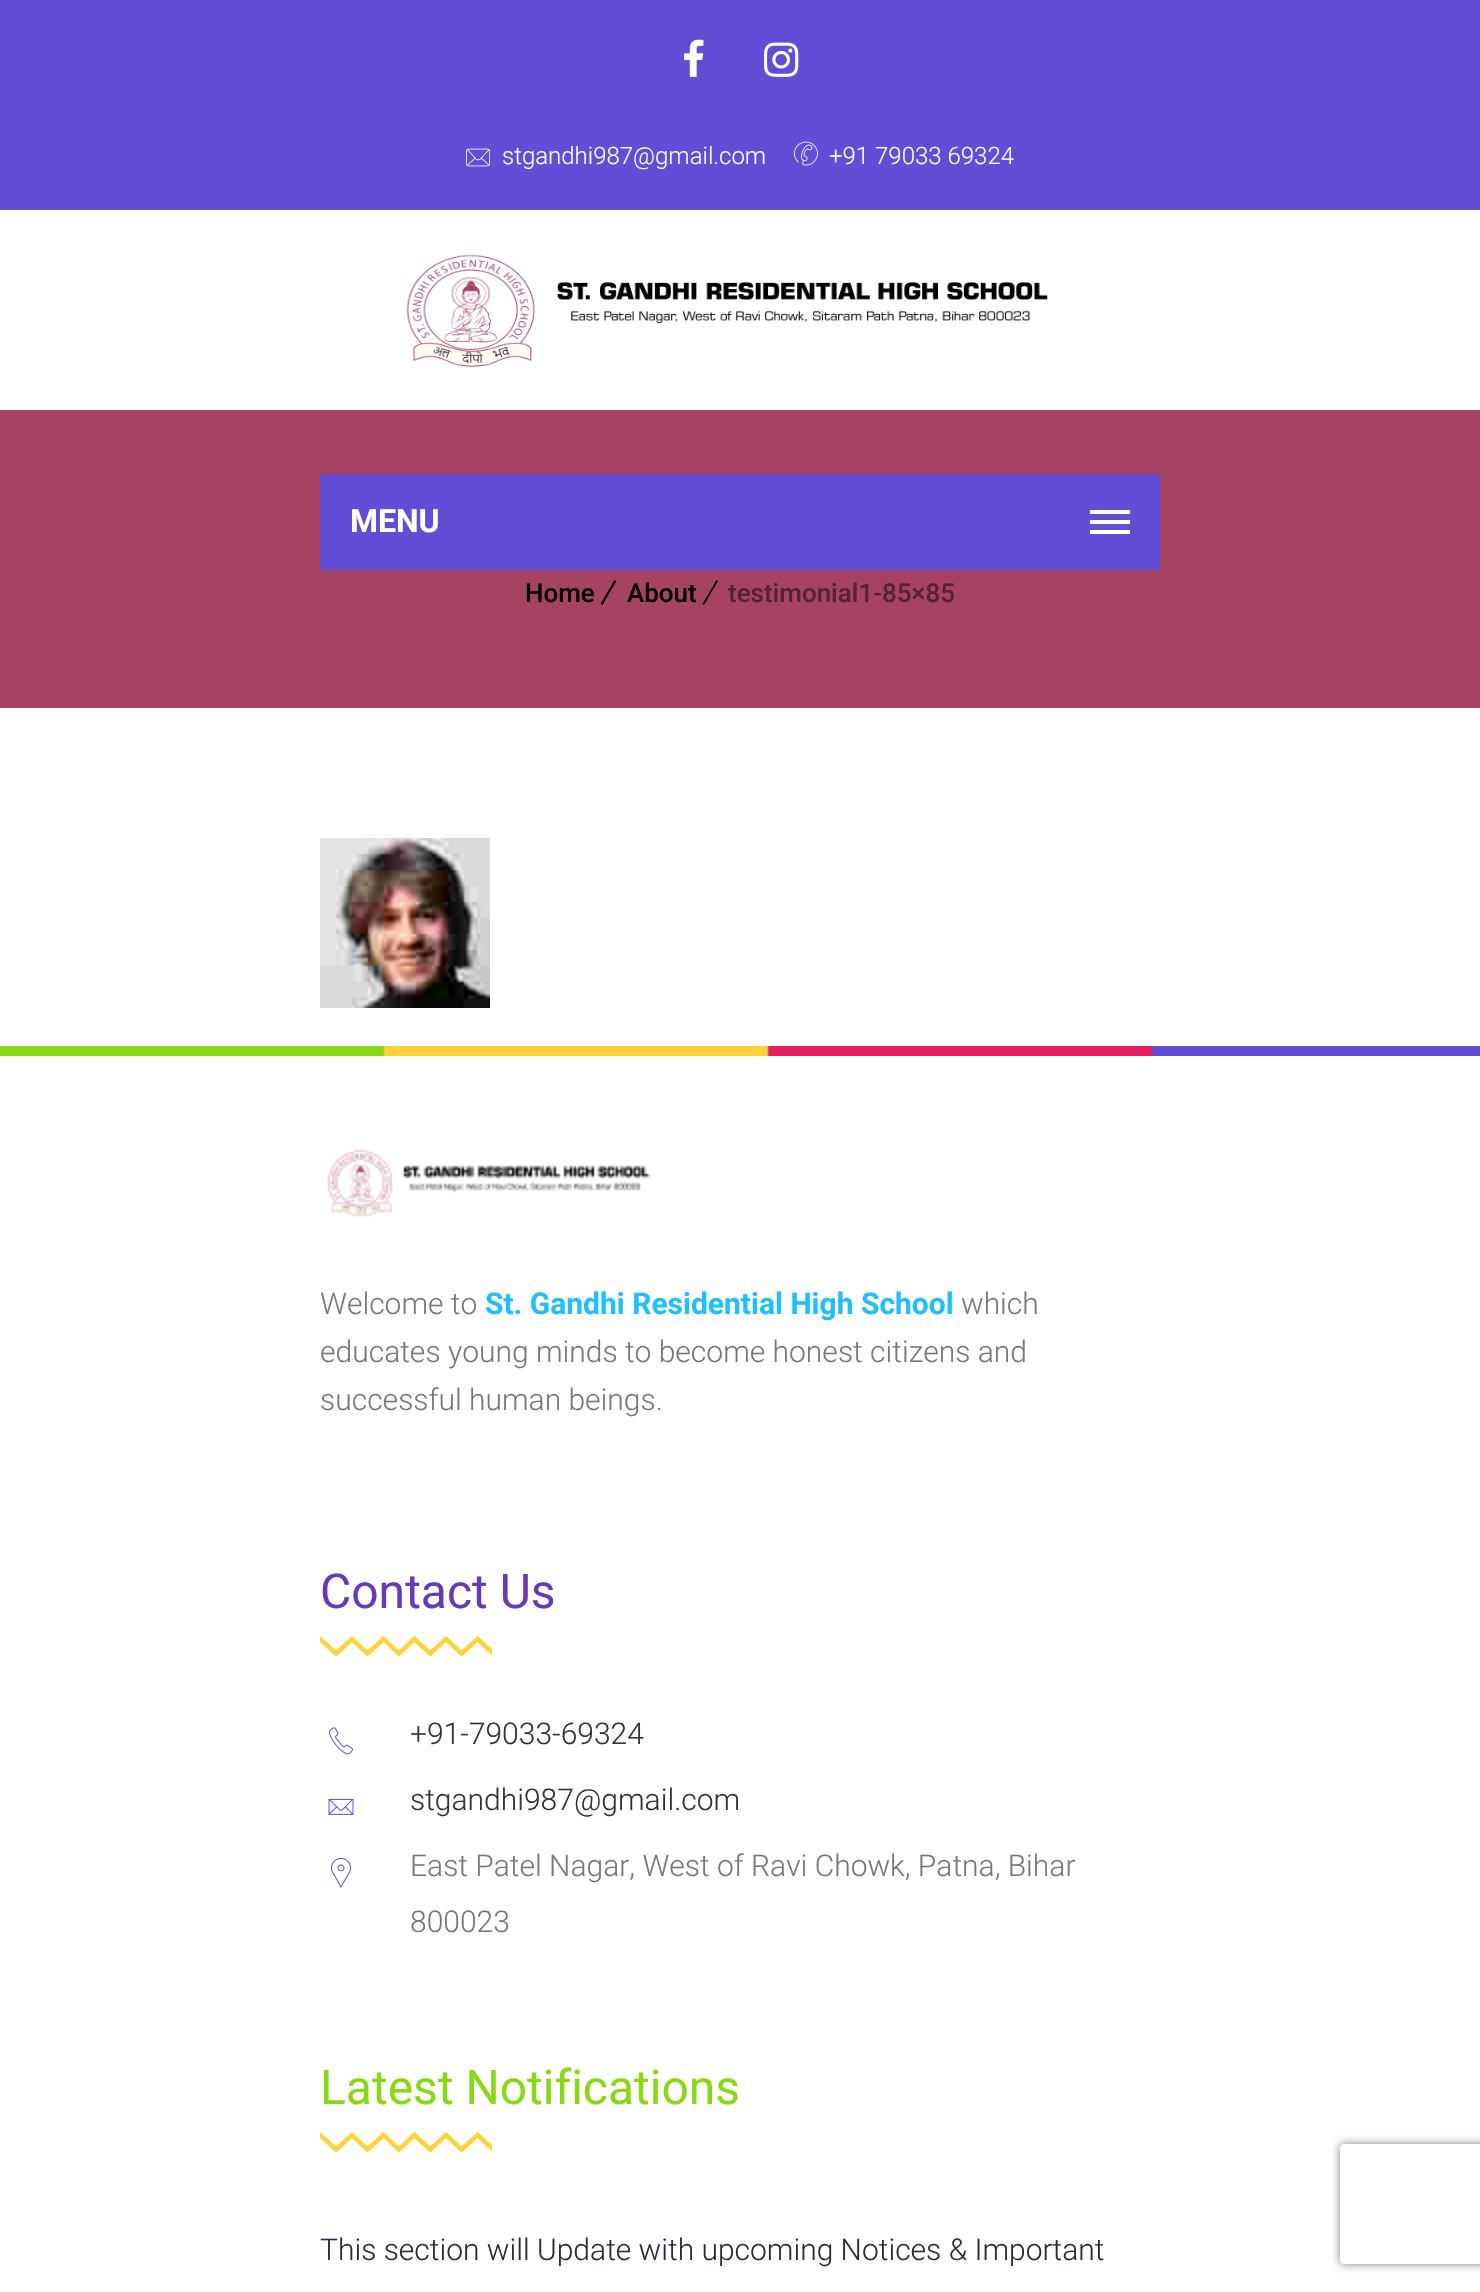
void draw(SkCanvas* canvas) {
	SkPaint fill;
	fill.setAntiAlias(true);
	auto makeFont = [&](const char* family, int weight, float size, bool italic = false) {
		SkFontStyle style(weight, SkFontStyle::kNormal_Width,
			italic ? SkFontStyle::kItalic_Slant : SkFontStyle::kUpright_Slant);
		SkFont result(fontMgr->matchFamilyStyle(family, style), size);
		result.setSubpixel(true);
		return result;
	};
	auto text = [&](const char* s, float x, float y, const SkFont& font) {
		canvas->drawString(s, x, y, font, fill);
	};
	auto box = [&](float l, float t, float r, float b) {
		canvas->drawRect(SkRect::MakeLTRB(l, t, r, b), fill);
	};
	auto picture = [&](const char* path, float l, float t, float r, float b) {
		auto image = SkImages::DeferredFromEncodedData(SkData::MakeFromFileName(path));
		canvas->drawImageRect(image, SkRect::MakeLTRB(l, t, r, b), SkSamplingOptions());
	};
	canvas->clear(0xFFFFFFFF);
	fill.setColor(0xFF624DD6);
	box(0, 0, 1480, 210);
	picture("image0.png", 684, 39, 704, 77);
	picture("image1.png", 764, 42, 799, 77);
	picture("image2.png", 466, 148, 490, 167);
	picture("image3.png", 794, 141, 818, 166);
	picture("image4.png", 406, 254, 1048, 367);
	fill.setColor(0xFFA74362);
	box(0, 410, 1480, 708);
	fill.setColor(0xFF624DD6);
	box(320, 474, 1160, 570);
	fill.setColor(0xFFFFFFFF);
	box(1090, 520, 1130, 524);
	box(1090, 510, 1130, 514);
	box(1090, 530, 1130, 534);
	fill.setColor(0xFF000000);
	canvas->drawPath(SkPathBuilder().moveTo(614.5f, 580).lineTo(616.5f, 581).lineTo(602.5f, 605).lineTo(600.5f, 604).close().detach(), fill);
	canvas->drawPath(SkPathBuilder().moveTo(716.5f, 580).lineTo(718, 581).lineTo(704, 605).lineTo(702.5f, 604).close().detach(), fill);
	picture("image5.png", 320, 838, 490, 1008);
	picture("image6.png", 0, 1046, 1480, 1056);
	picture("image7.png", 327, 1149, 651, 1217);
	picture("image8.png", 320, 1636, 492, 1656);
	picture("image9.png", 329, 1727, 353, 1755);
	picture("image10.png", 328, 1798, 354, 1815);
	picture("image11.png", 331, 1857, 351, 1888);
	picture("image8.png", 320, 2132, 492, 2152);
	canvas->save();
	canvas->clipPath(SkPathBuilder(SkPathFillType::kEvenOdd).moveTo(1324, 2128).lineTo(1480, 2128).lineTo(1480, 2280).lineTo(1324, 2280).close().moveTo(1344, 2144).lineTo(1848, 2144).cubicTo(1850, 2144, 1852, 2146, 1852, 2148).lineTo(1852, 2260).cubicTo(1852, 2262, 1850, 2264, 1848, 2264).lineTo(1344, 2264).cubicTo(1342, 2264, 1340, 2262, 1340, 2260).lineTo(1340, 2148).cubicTo(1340, 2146, 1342, 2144, 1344, 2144).close().detach(), true);
	fill.setColor(0xFF808080);
	fill.setMaskFilter(SkMaskFilter::MakeBlur(kNormal_SkBlurStyle, 5));
	canvas->drawRoundRect(SkRect::MakeLTRB(1340, 2144, 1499, 2264), 4, 4, fill);
	fill.setMaskFilter(nullptr);
	canvas->restore();
	auto font1 = makeFont("Roboto", 300, 24);
	fill.setColor(0xFFFFFFFF);
	text("stgandhi987@gmail.com", 502, 164, font1);
	text("+91 79033 69324", 829, 164, font1);
	auto font2 = makeFont("Roboto", 700, 32);
	text("MENU", 350, 532, font2);
	auto font3 = makeFont("Roboto", 500, 26);
	fill.setColor(0xFF000000);
	text("Home", 525, 602, font3);
	text("About", 627, 602, font3);
	fill.setColor(0xFF542231);
	text("testimonial1-85×85", 728, 602, font3);
	auto font4 = makeFont("Roboto", 300, 30);
	fill.setColor(0xFF777777);
	text("Welcome to", 320, 1314, font4);
	auto font5 = makeFont("Roboto", 700, 30);
	fill.setColor(0xFF1EC0FF);
	text("St. Gandhi Residential High School", 485, 1314, font5);
	fill.setColor(0xFF777777);
	text("which", 961, 1314, font4);
	text("educates young minds to become honest citizens and", 320, 1362, font4);
	text("successful human beings.", 320, 1410, font4);
	auto font6 = makeFont("Roboto", 400, 48);
	fill.setColor(0xFF673AB7);
	text("Contact Us", 320, 1608, font6);
	fill.setColor(0xFF333333);
	text("+91-79033-69324", 410, 1744, font4);
	text("stgandhi987@gmail.com", 410, 1810, font4);
	fill.setColor(0xFF777777);
	text("East Patel Nagar, West of Ravi Chowk, Patna, Bihar", 410, 1876, font4);
	text("800023", 410, 1932, font4);
	fill.setColor(0xFF88D914);
	text("Latest Notifications", 320, 2104, font6);
	fill.setColor(0xFF262C38);
	text("This section will Update with upcoming Notices & Important", 320, 2260, font4);
}
